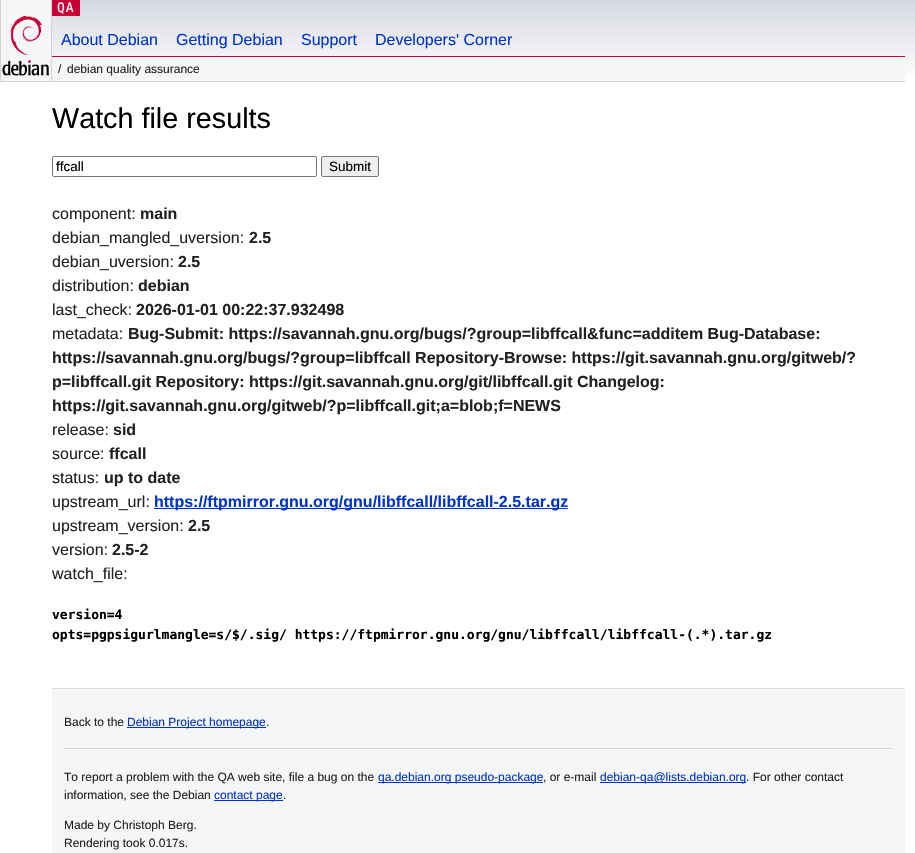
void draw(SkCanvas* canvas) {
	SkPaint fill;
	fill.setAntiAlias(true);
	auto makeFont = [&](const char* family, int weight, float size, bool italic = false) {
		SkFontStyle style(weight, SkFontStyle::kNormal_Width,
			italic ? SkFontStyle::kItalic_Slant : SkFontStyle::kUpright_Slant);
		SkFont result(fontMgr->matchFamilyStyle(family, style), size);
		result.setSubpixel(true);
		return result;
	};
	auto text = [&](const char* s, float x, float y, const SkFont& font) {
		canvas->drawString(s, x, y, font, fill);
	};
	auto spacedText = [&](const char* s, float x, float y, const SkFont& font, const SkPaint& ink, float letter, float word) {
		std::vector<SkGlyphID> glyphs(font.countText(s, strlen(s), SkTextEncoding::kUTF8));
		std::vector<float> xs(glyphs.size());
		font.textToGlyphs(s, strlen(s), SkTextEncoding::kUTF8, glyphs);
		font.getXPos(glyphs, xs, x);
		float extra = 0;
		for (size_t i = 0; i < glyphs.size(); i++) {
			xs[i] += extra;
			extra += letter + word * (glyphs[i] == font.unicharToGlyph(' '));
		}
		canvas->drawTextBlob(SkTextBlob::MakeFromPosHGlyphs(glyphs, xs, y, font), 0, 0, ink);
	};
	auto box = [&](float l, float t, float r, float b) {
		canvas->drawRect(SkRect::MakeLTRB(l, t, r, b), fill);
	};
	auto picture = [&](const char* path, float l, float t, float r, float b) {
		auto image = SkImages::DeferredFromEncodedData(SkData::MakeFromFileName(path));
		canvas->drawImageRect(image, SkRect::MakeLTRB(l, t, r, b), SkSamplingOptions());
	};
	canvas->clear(0xFFFFFFFF);
	{
		const SkColor colors[] = {0xFFD7D9E2, 0xFFFFFFFF};
		const float stops[] = {0, 1};
		const SkPoint ends[] = {{458, 0}, {458, 82}};
		fill.setShader(SkGradientShader::MakeLinear(ends, colors, stops, 2, SkTileMode::kClamp));
		fill.setAlpha(255);
	}
	box(52, 0, 915, 77);
	fill.setShader(nullptr);
	fill.setColor(0xFFF5F6F7);
	box(1, 0, 51, 81);
	fill.setColor(0xFFD2D3D7);
	box(51, 0, 52, 82);
	box(0, 81, 52, 82);
	box(0, 0, 1, 82);
	picture("image0.png", 2, 16, 49, 76);
	fill.setColor(0xFFC70036);
	box(52, 0, 80, 16);
	box(52, 56, 905, 57);
	fill.setColor(0xFFF5F6F7);
	box(52, 66, 905, 81);
	fill.setColor(0xFFD2D3D7);
	box(52, 81, 905, 82);
	fill.setStyle(SkPaint::kStroke_Style);
	fill.setStrokeWidth(1);
	fill.setColor(0xFF767676);
	canvas->drawRoundRect(SkRect::MakeLTRB(52.5f, 156.5f, 316.5f, 176.5f), 1.5f, 1.5f, fill);
	fill.setStyle(SkPaint::kFill_Style);
	fill.setColor(0xFFEFEFEF);
	canvas->drawRoundRect(SkRect::MakeLTRB(321.5f, 156.5f, 378.5f, 176.5f), 1.5f, 1.5f, fill);
	fill.setStyle(SkPaint::kStroke_Style);
	fill.setColor(0xFF767676);
	canvas->drawRoundRect(SkRect::MakeLTRB(321.5f, 156.5f, 378.5f, 176.5f), 1.5f, 1.5f, fill);
	fill.setStyle(SkPaint::kFill_Style);
	fill.setColor(0xFF0035C7);
	box(154, 508, 568, 509);
	fill.setColor(0xFFF5F6F7);
	box(52, 689, 905, 853);
	fill.setColor(0xFFDFDFE0);
	box(52, 688, 905, 689);
	fill.setColor(0xFF0035C7);
	box(127, 727, 266, 728);
	fill.setColor(0xFFD2D3D7);
	box(64, 748, 893, 749);
	fill.setColor(0xFFFFFFFF);
	box(64, 749, 893, 750);
	fill.setColor(0xFF0035C7);
	box(378, 782, 543, 783);
	box(600, 782, 746, 783);
	box(214, 800, 283, 801);
	auto font1 = makeFont("DejaVu Sans Mono", 400, 13);
	fill.setColor(0xFFFFFFFF);
	spacedText("QA", 57, 12, font1, fill, 1, 0);
	auto font2 = makeFont("Liberation Sans", 400, 16);
	fill.setColor(0xFF0035C7);
	text("About Debian", 61, 45, font2);
	text("Getting Debian", 176, 45, font2);
	text("Support", 301, 45, font2);
	text("Developers' Corner", 375, 45, font2);
	auto font3 = makeFont("Liberation Sans", 400, 12);
	fill.setColor(0xFF222222);
	text("/", 58, 73, font3);
	text("debian quality assurance", 67, 73, font3);
	auto font4 = makeFont("Liberation Sans", 400, 28.75f);
	fill.setColor(0xFF000000);
	text("Watch file results", 52, 128, font4);
	auto font5 = makeFont("Liberation Sans", 400, 13.5f);
	text("ffcall", 56, 171, font5);
	text("Submit", 329, 171, font5);
	fill.setColor(0xFF222222);
	text("component:", 52, 219, font2);
	auto font6 = makeFont("Liberation Sans", 700, 16);
	text("main", 140, 219, font6);
	text("debian_mangled_uversion:", 52, 243, font2);
	text("2.5", 249, 243, font6);
	text("debian_uversion:", 52, 267, font2);
	text("2.5", 178, 267, font6);
	text("distribution:", 52, 291, font2);
	text("debian", 138, 291, font6);
	text("last_check:", 52, 315, font2);
	text("2026-01-01 00:22:37.932498", 136, 315, font6);
	text("metadata:", 52, 339, font2);
	text("Bug-Submit: https://savannah.gnu.org/bugs/?group=libffcall&func=additem Bug-Database:", 128, 339, font6);
	text("https://savannah.gnu.org/bugs/?group=libffcall Repository-Browse: https://git.savannah.gnu.org/gitweb/?", 52, 363, font6);
	text("p=libffcall.git Repository: https://git.savannah.gnu.org/git/libffcall.git Changelog:", 52, 387, font6);
	text("https://git.savannah.gnu.org/gitweb/?p=libffcall.git;a=blob;f=NEWS", 52, 411, font6);
	text("release:", 52, 435, font2);
	text("sid", 113, 435, font6);
	text("source:", 52, 459, font2);
	text("ffcall", 109, 459, font6);
	text("status:", 52, 483, font2);
	text("up to date", 104, 483, font6);
	text("upstream_url:", 52, 507, font2);
	fill.setColor(0xFF0035C7);
	text("https://ftpmirror.gnu.org/gnu/libffcall/libffcall-2.5.tar.gz", 154, 507, font6);
	fill.setColor(0xFF222222);
	text("upstream_version:", 52, 531, font2);
	text("2.5", 188, 531, font6);
	text("version:", 52, 555, font2);
	text("2.5-2", 112, 555, font6);
	text("watch_file:", 52, 579, font2);
	auto font7 = makeFont("DejaVu Sans Mono", 700, 13);
	fill.setColor(0xFF000000);
	text("version=4", 52, 619, font7);
	text("opts=pgpsigurlmangle=s/$/.sig/ https://ftpmirror.gnu.org/gnu/libffcall/libffcall-(.*).tar.gz", 52, 639, font7);
	fill.setColor(0xFF222222);
	text("Back to the", 64, 726, font3);
	fill.setColor(0xFF0035C7);
	text("Debian Project homepage", 127, 726, font3);
	fill.setColor(0xFF222222);
	text(".", 266, 726, font3);
	text("To report a problem with the QA web site, file a bug on the", 64, 781, font3);
	fill.setColor(0xFF0035C7);
	text("qa.debian.org pseudo-package", 378, 781, font3);
	fill.setColor(0xFF222222);
	text(", or e-mail", 543, 781, font3);
	fill.setColor(0xFF0035C7);
	text("debian-qa@lists.debian.org", 600, 781, font3);
	fill.setColor(0xFF222222);
	text(". For other contact", 746, 781, font3);
	text("information, see the Debian", 64, 799, font3);
	fill.setColor(0xFF0035C7);
	text("contact page", 214, 799, font3);
	fill.setColor(0xFF222222);
	text(".", 283, 799, font3);
	text("Made by Christoph Berg.", 64, 829, font3);
	text("Rendering took 0.017s.", 64, 847, font3);
}
